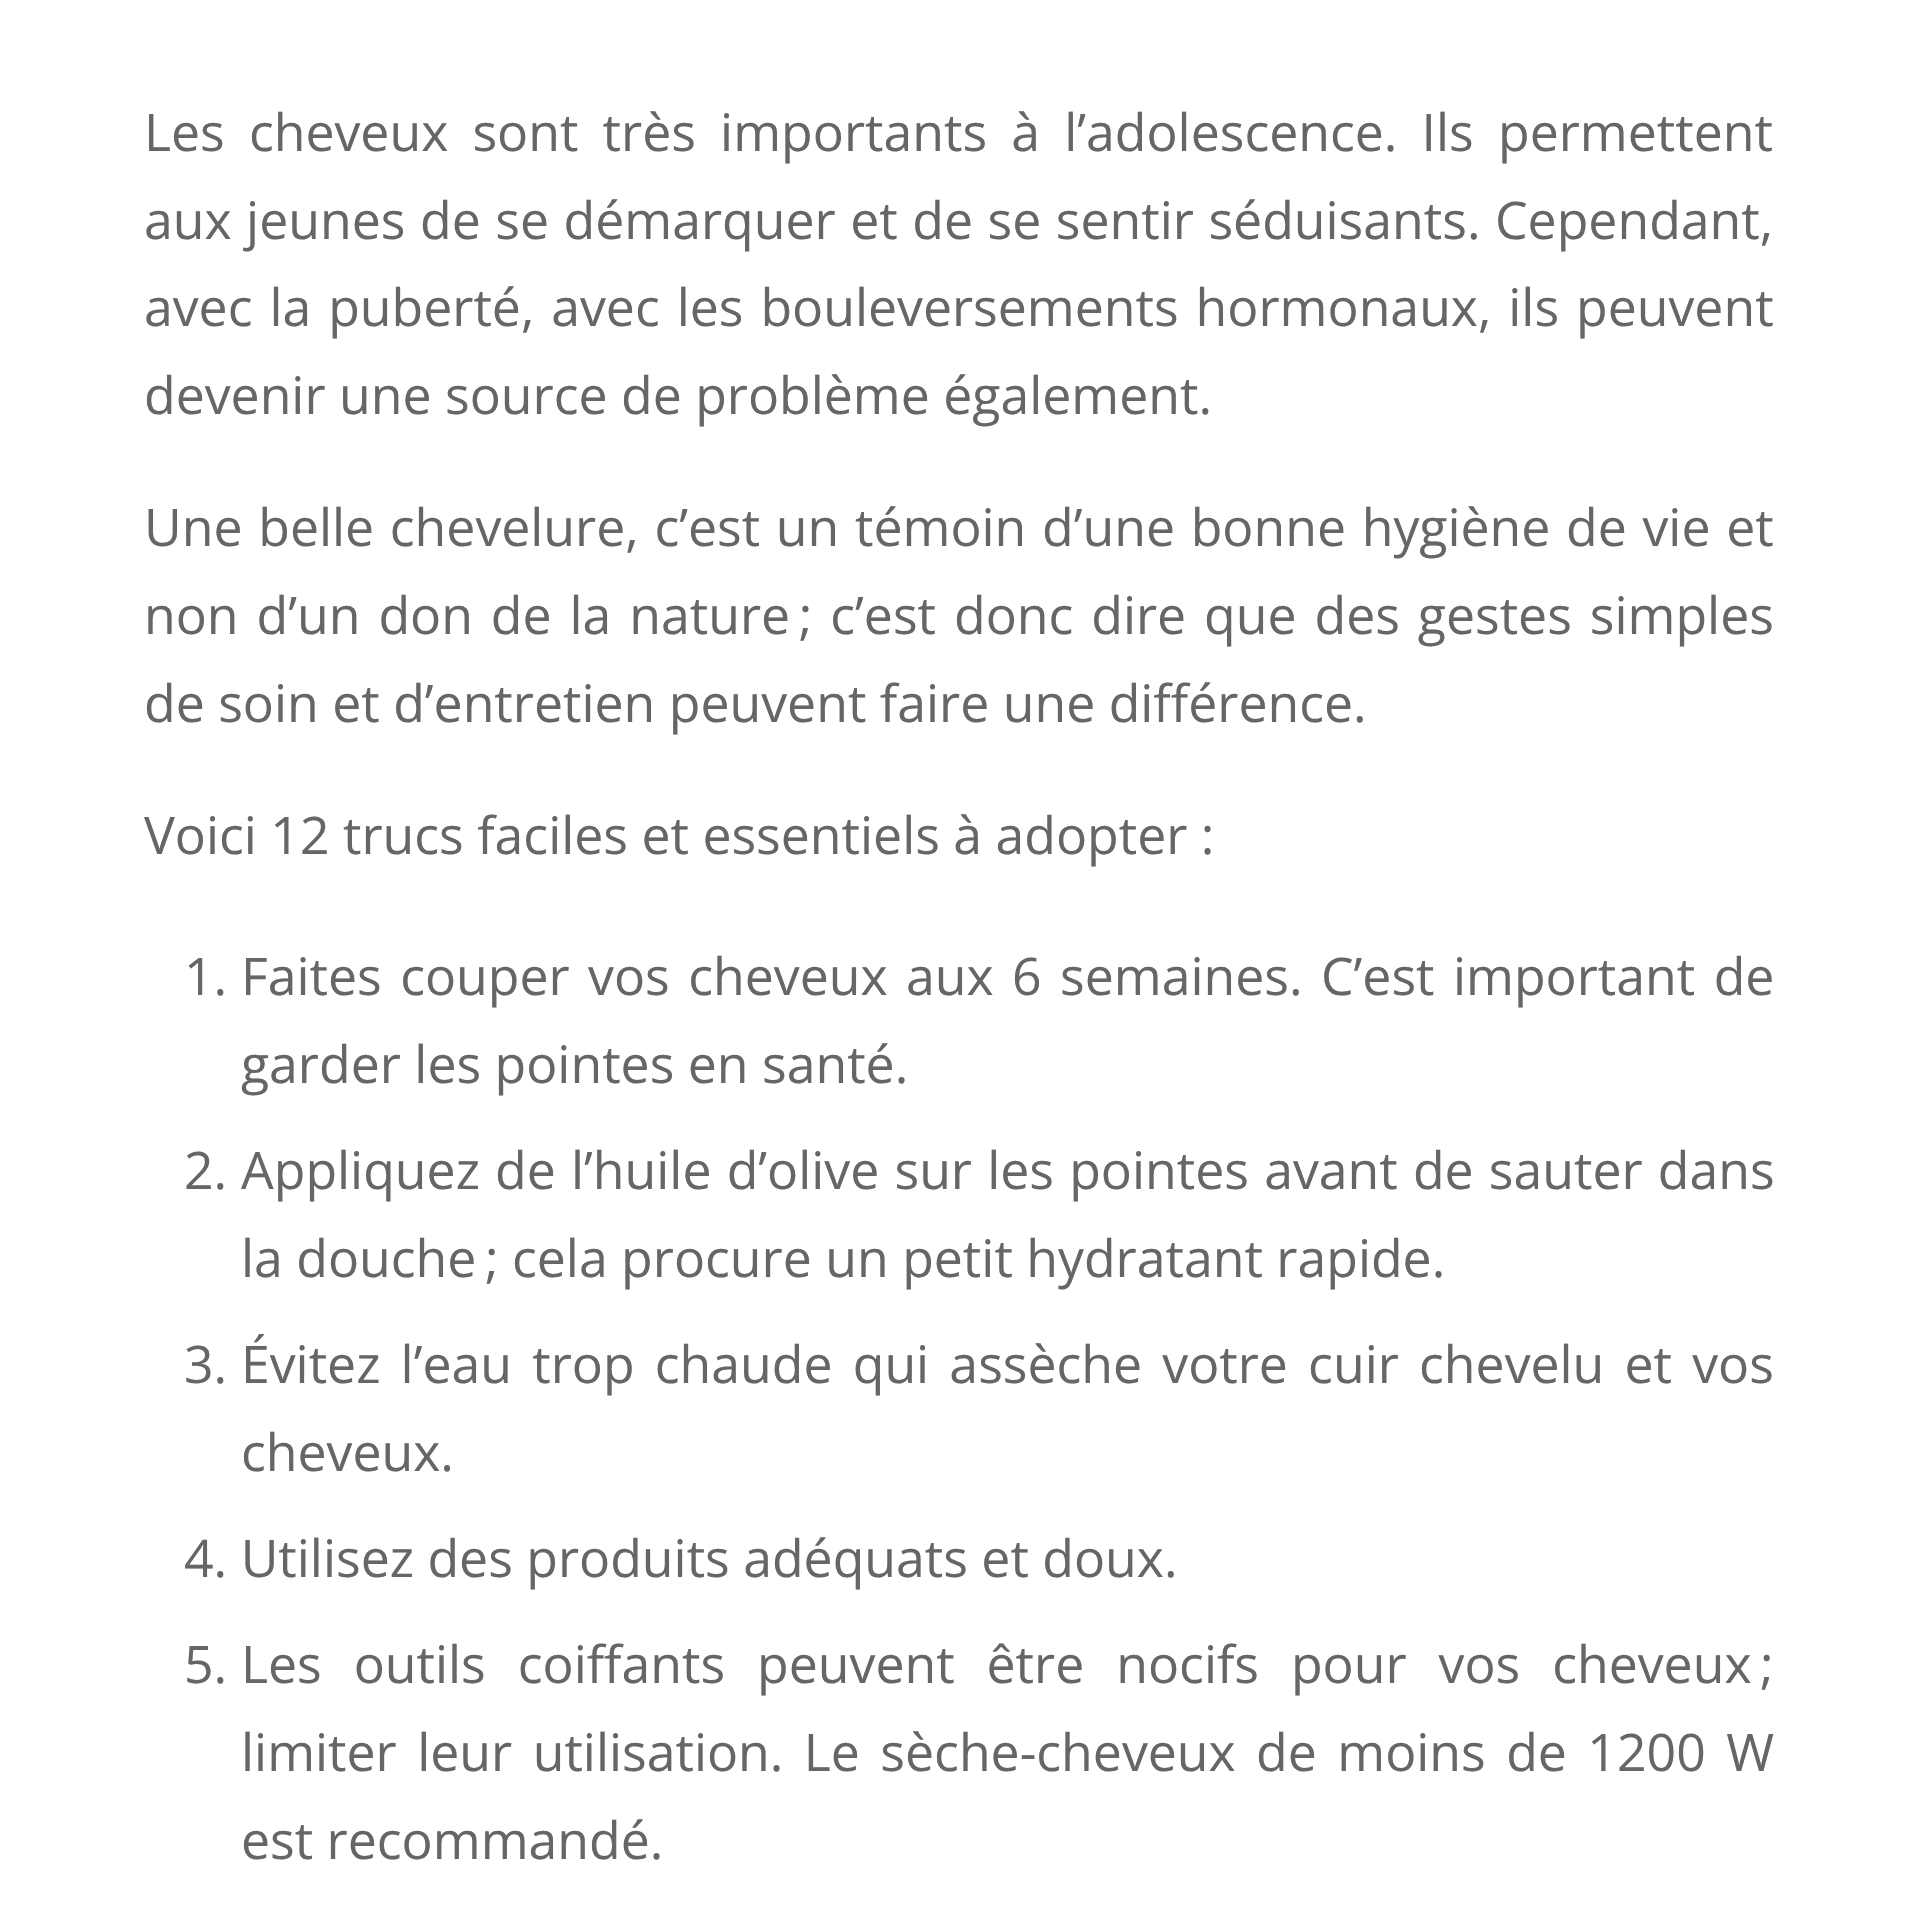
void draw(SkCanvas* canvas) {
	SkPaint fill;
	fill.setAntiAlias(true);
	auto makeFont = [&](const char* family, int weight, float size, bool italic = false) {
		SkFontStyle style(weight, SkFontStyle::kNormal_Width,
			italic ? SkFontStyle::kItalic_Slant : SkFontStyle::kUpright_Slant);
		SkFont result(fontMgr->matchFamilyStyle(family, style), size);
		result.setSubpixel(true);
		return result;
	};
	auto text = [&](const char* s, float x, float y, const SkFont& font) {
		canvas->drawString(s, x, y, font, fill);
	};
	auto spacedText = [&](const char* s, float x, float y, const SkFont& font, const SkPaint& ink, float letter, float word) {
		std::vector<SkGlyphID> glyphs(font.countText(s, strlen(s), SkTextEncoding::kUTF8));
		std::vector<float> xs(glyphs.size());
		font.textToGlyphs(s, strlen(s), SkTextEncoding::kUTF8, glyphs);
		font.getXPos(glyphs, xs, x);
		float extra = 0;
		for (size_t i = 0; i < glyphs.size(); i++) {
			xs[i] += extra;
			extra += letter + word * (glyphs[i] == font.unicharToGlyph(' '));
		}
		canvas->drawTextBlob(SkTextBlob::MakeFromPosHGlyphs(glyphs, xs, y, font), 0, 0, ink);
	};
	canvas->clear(0xFFFFFFFF);
	auto font1 = makeFont("Open Sans", 400, 51.75f);
	fill.setColor(0xFF666666);
	spacedText("Les cheveux sont très importants à l’adolescence. Ils permettent", 144, 151, font1, fill, 0, 10.75f);
	spacedText("aux jeunes de se démarquer et de se sentir séduisants. Cependant,", 144, 239, font1, fill, 0, 1.1f);
	spacedText("avec la puberté, avec les bouleversements hormonaux, ils peuvent", 144, 326, font1, fill, 0, 3.5f);
	text("devenir une source de problème également.", 144, 414, font1);
	spacedText("Une belle chevelure, c’est un témoin d’une bonne hygiène de vie et", 144, 546, font1, fill, 0, 2.25f);
	spacedText("non d’un don de la nature ; c’est donc dire que des gestes simples", 144, 634, font1, fill, 0, 4.5f);
	text("de soin et d’entretien peuvent faire une différence.", 144, 722, font1);
	text("Voici 12 trucs faciles et essentiels à adopter :", 144, 854, font1);
	text("1.", 184, 995, font1);
	spacedText("Faites couper vos cheveux aux 6 semaines. C’est important de", 241, 995, font1, fill, 0, 5);
	text("garder les pointes en santé.", 241, 1083, font1);
	text("2.", 184, 1189, font1);
	spacedText("Appliquez de l’huile d’olive sur les pointes avant de sauter dans", 241, 1189, font1, fill, 0, 1.75f);
	text("la douche ; cela procure un petit hydratant rapide.", 241, 1277, font1);
	text("3.", 184, 1383, font1);
	spacedText("Évitez l’eau trop chaude qui assèche votre cuir chevelu et vos", 241, 1383, font1, fill, 0, 6.75f);
	text("cheveux.", 241, 1471, font1);
	text("4. Utilisez des produits adéquats et doux.", 184, 1577, font1);
	text("5.", 184, 1683, font1);
	spacedText("Les outils coiffants peuvent être nocifs pour vos cheveux ;", 241, 1683, font1, fill, 0, 18.5f);
	spacedText("limiter leur utilisation. Le sèche-cheveux de moins de 1200 W", 241, 1771, font1, fill, 0, 7);
	text("est recommandé.", 241, 1859, font1);
}
